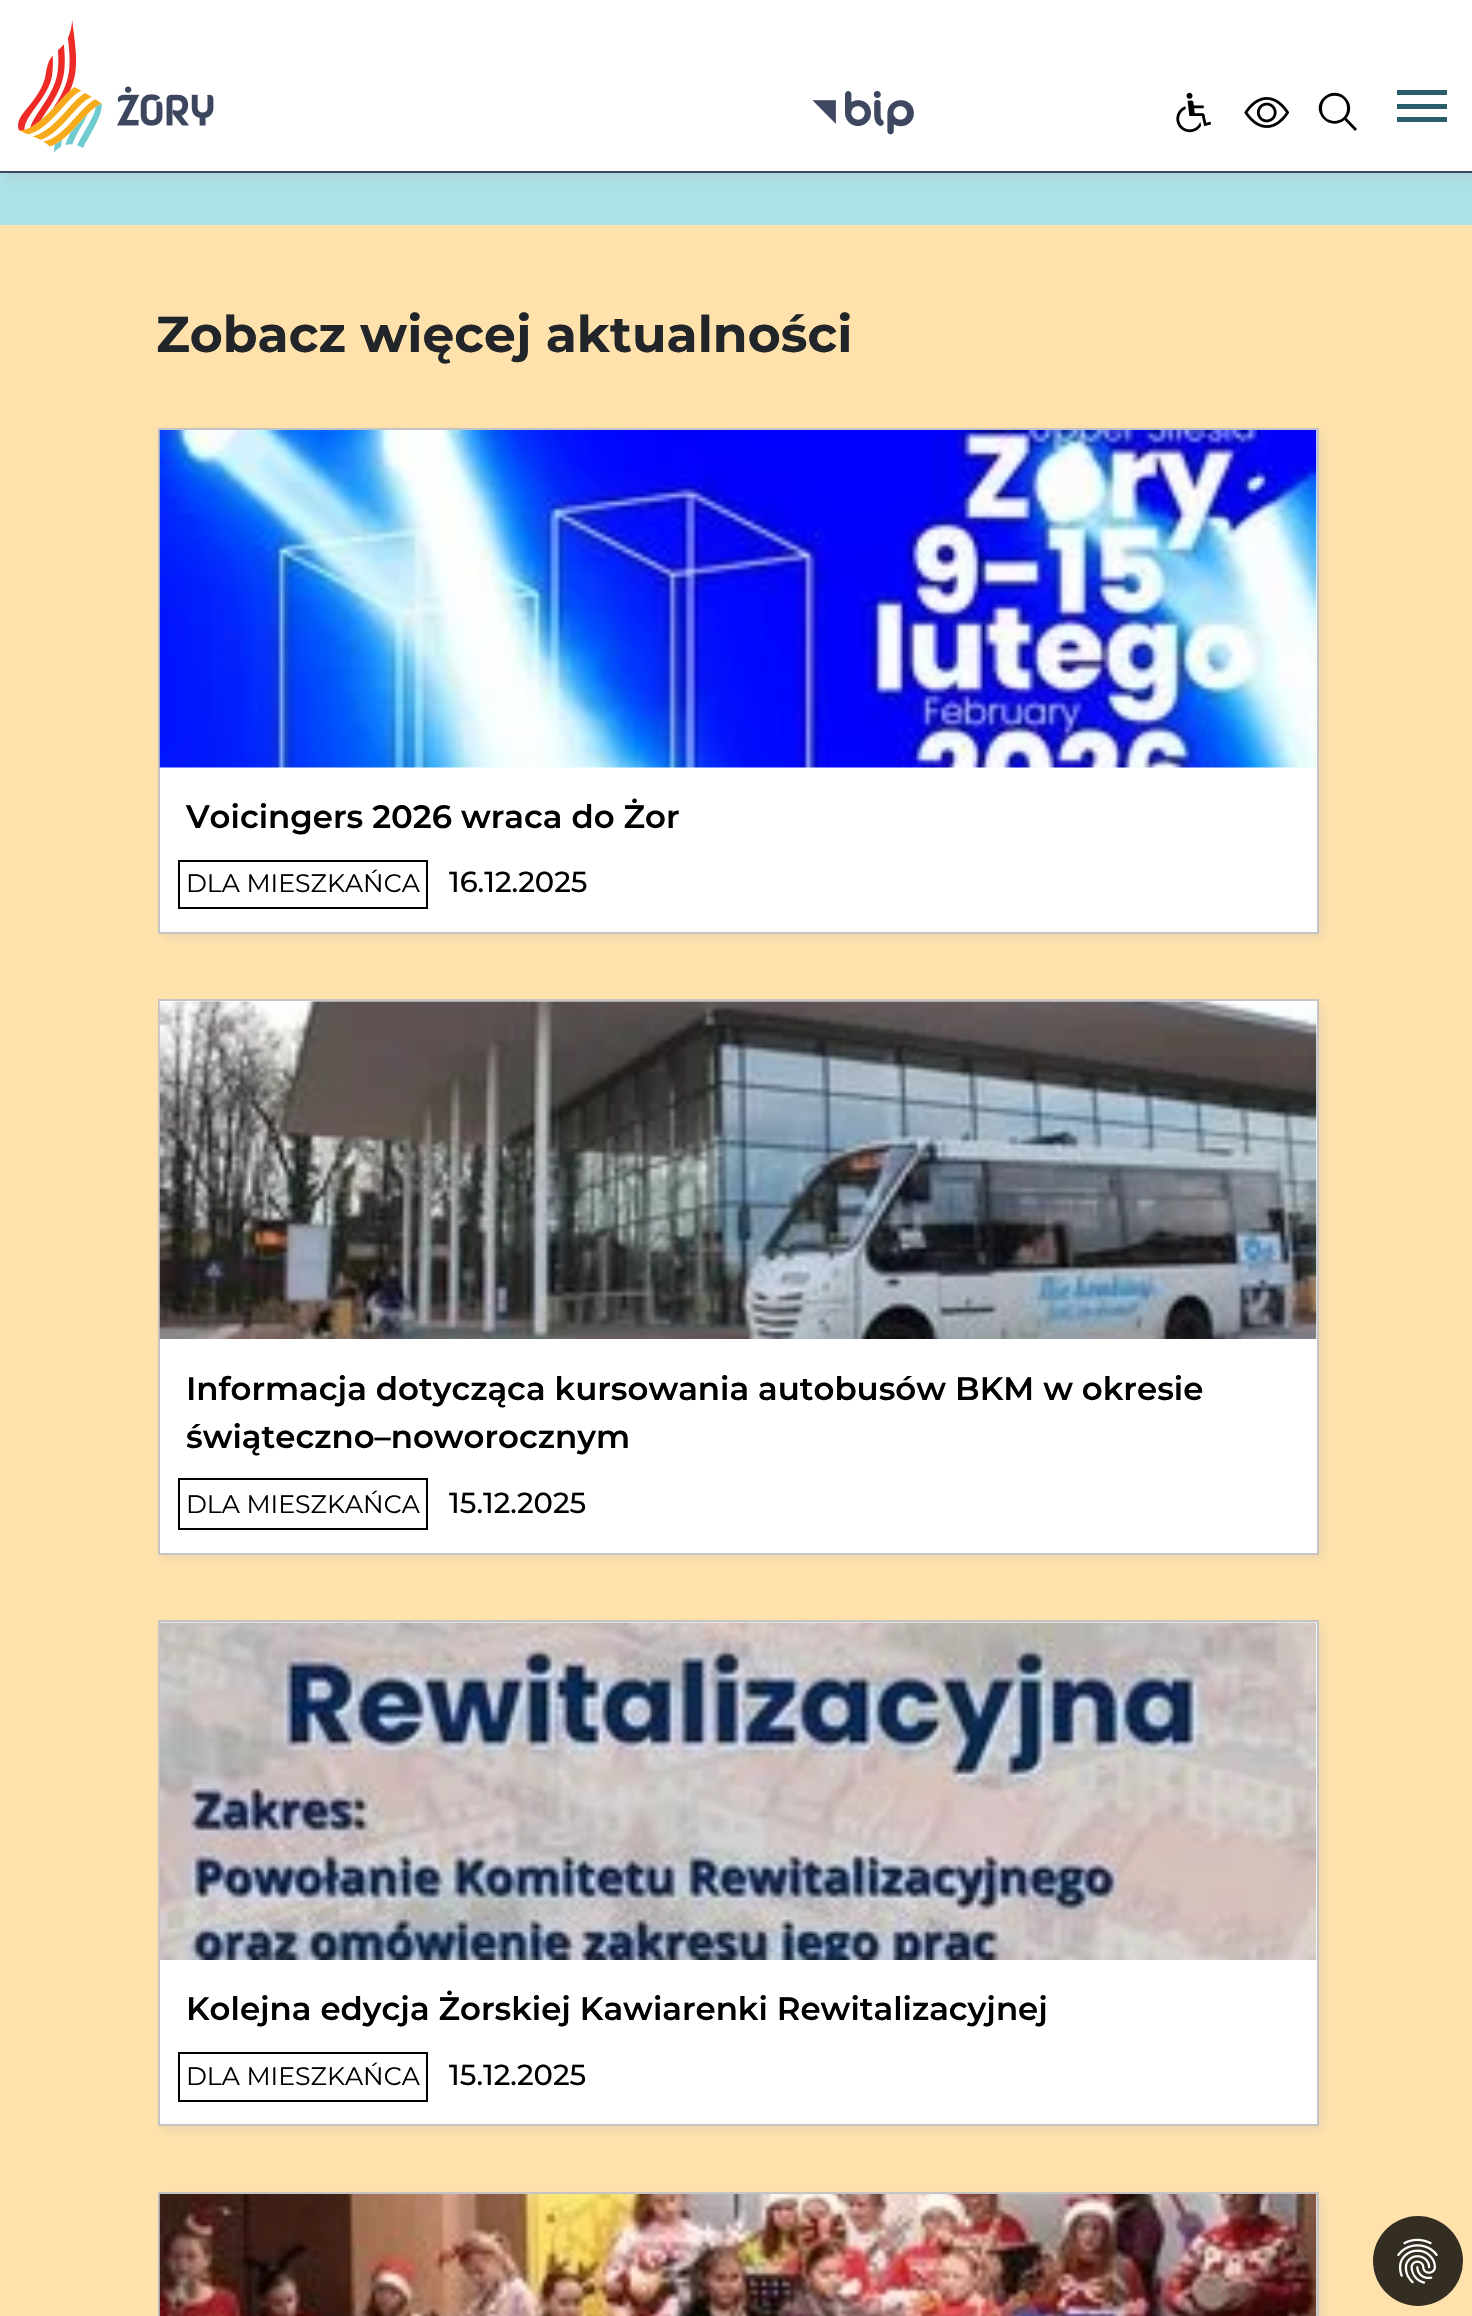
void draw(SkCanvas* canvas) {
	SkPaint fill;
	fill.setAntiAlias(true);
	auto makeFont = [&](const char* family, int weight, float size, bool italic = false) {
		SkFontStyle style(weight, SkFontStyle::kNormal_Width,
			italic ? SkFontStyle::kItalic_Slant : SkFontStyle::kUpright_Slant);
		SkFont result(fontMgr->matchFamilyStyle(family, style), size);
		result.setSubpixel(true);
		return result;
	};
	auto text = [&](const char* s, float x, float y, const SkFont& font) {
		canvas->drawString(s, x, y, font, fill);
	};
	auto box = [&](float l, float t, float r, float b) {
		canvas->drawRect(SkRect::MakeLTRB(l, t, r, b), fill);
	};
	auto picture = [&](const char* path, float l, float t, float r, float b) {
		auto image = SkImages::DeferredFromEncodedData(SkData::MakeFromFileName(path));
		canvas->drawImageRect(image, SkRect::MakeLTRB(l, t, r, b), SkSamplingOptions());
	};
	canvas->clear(0xFFAAE3E7);
	fill.setColor(0x40B8B2B2);
	fill.setMaskFilter(SkMaskFilter::MakeBlur(kNormal_SkBlurStyle, 4.5f));
	canvas->drawRect(SkRect::MakeLTRB(5, 9, 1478, 182), fill);
	fill.setMaskFilter(nullptr);
	fill.setColor(0xFFFFFFFF);
	box(0, 0, 1472, 171);
	fill.setColor(0xFF3C465F);
	box(0, 171, 1472, 173);
	picture("image0.png", 18, 20, 214, 152);
	picture("image1.png", 812, 91, 914, 135);
	picture("image2.png", 1176, 92, 1212, 133);
	picture("image3.png", 1244, 97, 1289, 128);
	fill.setColor(0xFF000000);
	canvas->drawPath(SkPathBuilder().moveTo(1357, 129).lineTo(1346.5f, 118).cubicTo(1359, 103, 1337.5f, 83.5f, 1323.5f, 97.5f).cubicTo(1309.5f, 111, 1329.5f, 132.5f, 1344.5f, 120).lineTo(1355, 131).close().moveTo(1322, 108.5f).cubicTo(1322, 91.5f, 1347.5f, 91.5f, 1347, 108.5f).cubicTo(1347, 125, 1322, 125, 1322, 108.5f).close().detach(), fill);
	fill.setColor(0xFF2B5E6B);
	box(1397, 90, 1447, 95);
	box(1397, 104, 1447, 109);
	box(1397, 117, 1447, 122);
	fill.setColor(0xFFFFE2AB);
	box(0, 225, 1472, 2316);
	fill.setColor(0x40B8B2B2);
	fill.setMaskFilter(SkMaskFilter::MakeBlur(kNormal_SkBlurStyle, 4.5f));
	canvas->drawRect(SkRect::MakeLTRB(162, 432, 1323, 938), fill);
	fill.setMaskFilter(nullptr);
	fill.setColor(0xFFFFFFFF);
	canvas->drawRect(SkRect::MakeLTRB(159, 429, 1318, 933), fill);
	fill.setStyle(SkPaint::kStroke_Style);
	fill.setStrokeWidth(2);
	fill.setColor(0xFFC4C4C4);
	canvas->drawRect(SkRect::MakeLTRB(159, 429, 1318, 933), fill);
	picture("image4.png", 159, 430, 1317, 768);
	fill.setColor(0xFF000000);
	canvas->drawRect(SkRect::MakeLTRB(179, 861, 427, 908), fill);
	fill.setStyle(SkPaint::kFill_Style);
	fill.setColor(0x40B8B2B2);
	fill.setMaskFilter(SkMaskFilter::MakeBlur(kNormal_SkBlurStyle, 4.5f));
	canvas->drawRect(SkRect::MakeLTRB(162, 1004, 1323, 1559), fill);
	fill.setMaskFilter(nullptr);
	fill.setColor(0xFFFFFFFF);
	canvas->drawRect(SkRect::MakeLTRB(159, 1000, 1318, 1554), fill);
	fill.setStyle(SkPaint::kStroke_Style);
	fill.setColor(0xFFC4C4C4);
	canvas->drawRect(SkRect::MakeLTRB(159, 1000, 1318, 1554), fill);
	picture("image5.png", 159, 1001, 1317, 1339);
	fill.setColor(0xFF000000);
	canvas->drawRect(SkRect::MakeLTRB(179, 1479, 427, 1529), fill);
	fill.setStyle(SkPaint::kFill_Style);
	fill.setColor(0x40B8B2B2);
	fill.setMaskFilter(SkMaskFilter::MakeBlur(kNormal_SkBlurStyle, 4.5f));
	canvas->drawRect(SkRect::MakeLTRB(162, 1625, 1323, 2131), fill);
	fill.setMaskFilter(nullptr);
	fill.setColor(0xFFFFFFFF);
	canvas->drawRect(SkRect::MakeLTRB(159, 1621, 1318, 2125), fill);
	fill.setStyle(SkPaint::kStroke_Style);
	fill.setColor(0xFFC4C4C4);
	canvas->drawRect(SkRect::MakeLTRB(159, 1621, 1318, 2125), fill);
	picture("image6.png", 159, 1622, 1317, 1960);
	fill.setColor(0xFF000000);
	canvas->drawRect(SkRect::MakeLTRB(179, 2053, 427, 2101), fill);
	fill.setStyle(SkPaint::kFill_Style);
	fill.setColor(0x40B8B2B2);
	fill.setMaskFilter(SkMaskFilter::MakeBlur(kNormal_SkBlurStyle, 4.5f));
	canvas->drawRect(SkRect::MakeLTRB(162, 2196, 1323, 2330), fill);
	fill.setMaskFilter(nullptr);
	fill.setColor(0xFFFFFFFF);
	box(1316, 2194, 1317, 2316);
	fill.setStyle(SkPaint::kStroke_Style);
	fill.setColor(0xFFC4C4C4);
	canvas->drawRect(SkRect::MakeLTRB(159, 2193, 1318, 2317), fill);
	picture("image7.png", 159, 2194, 1317, 2316);
	fill.setStyle(SkPaint::kFill_Style);
	fill.setColor(0xFF332D22);
	canvas->drawCircle(1418, 2261, 45, fill);
	picture("image8.png", 1397, 2238, 1438, 2284);
	auto font1 = makeFont("Montserrat", 700, 50.4f);
	fill.setColor(0xFF212529);
	text("Zobacz więcej aktualności", 156, 352, font1);
	auto font2 = makeFont("Montserrat", 600, 32.4f);
	fill.setColor(0xFF000000);
	text("Voicingers 2026 wraca do Żor", 186, 828, font2);
	auto font3 = makeFont("Montserrat", 400, 25.25f);
	text("DLA MIESZKAŃCA", 186, 892, font3);
	auto font4 = makeFont("Montserrat", 500, 29);
	text("16.12.2025", 449, 892, font4);
	text("Informacja dotycząca kursowania autobusów BKM w okresie", 186, 1400, font2);
	text("świąteczno–noworocznym", 186, 1448, font2);
	text("DLA MIESZKAŃCA", 186, 1513, font3);
	text("15.12.2025", 449, 1513, font4);
	text("Kolejna edycja Żorskiej Kawiarenki Rewitalizacyjnej", 186, 2020, font2);
	text("DLA MIESZKAŃCA", 186, 2085, font3);
	text("15.12.2025", 449, 2085, font4);
}
